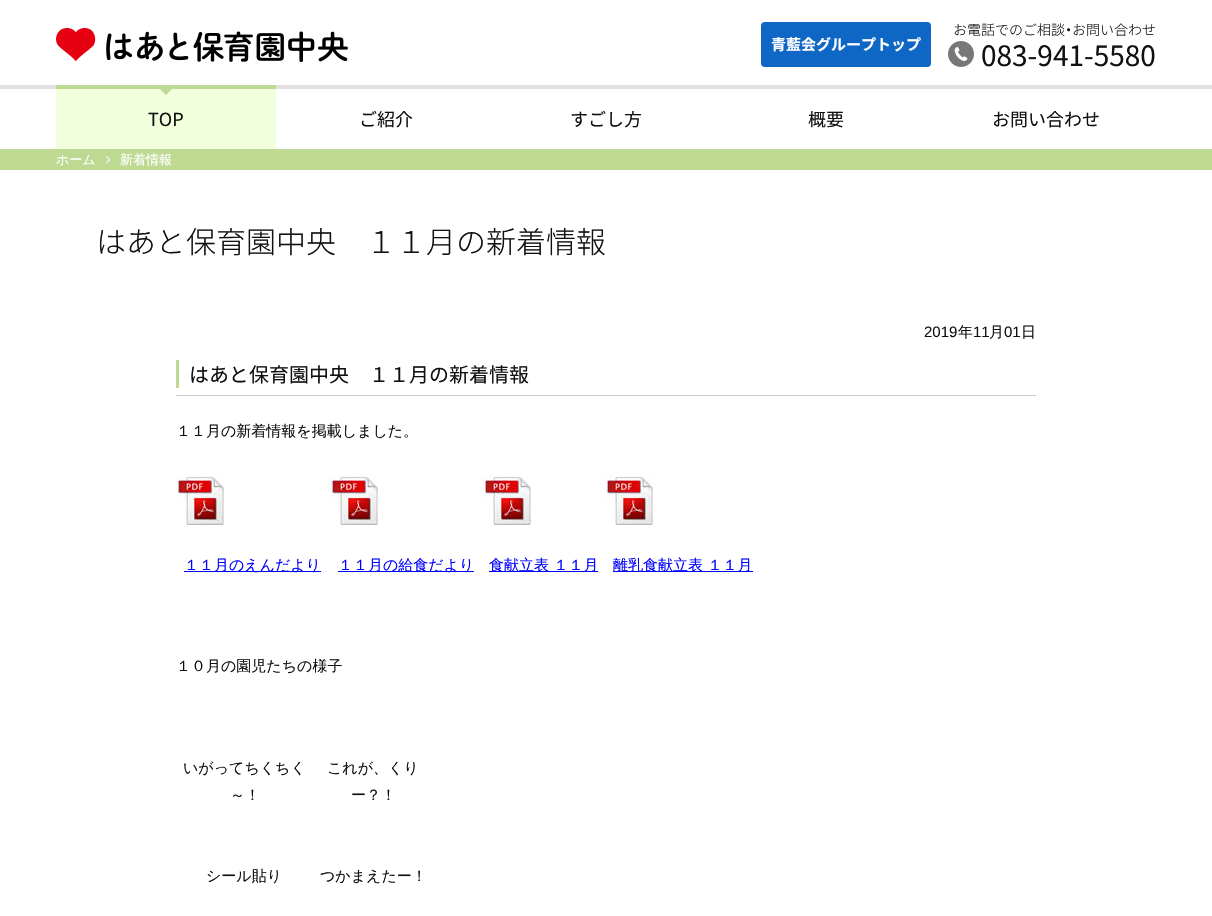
void draw(SkCanvas* canvas) {
	SkPaint fill;
	fill.setAntiAlias(true);
	auto makeFont = [&](const char* family, int weight, float size, bool italic = false) {
		SkFontStyle style(weight, SkFontStyle::kNormal_Width,
			italic ? SkFontStyle::kItalic_Slant : SkFontStyle::kUpright_Slant);
		SkFont result(fontMgr->matchFamilyStyle(family, style), size);
		result.setSubpixel(true);
		return result;
	};
	auto text = [&](const char* s, float x, float y, const SkFont& font) {
		canvas->drawString(s, x, y, font, fill);
	};
	auto box = [&](float l, float t, float r, float b) {
		canvas->drawRect(SkRect::MakeLTRB(l, t, r, b), fill);
	};
	auto roundBox = [&](float l, float t, float r, float b, float radius) {
		canvas->drawRoundRect(SkRect::MakeLTRB(l, t, r, b), radius, radius, fill);
	};
	auto picture = [&](const char* path, float l, float t, float r, float b) {
		auto image = SkImages::DeferredFromEncodedData(SkData::MakeFromFileName(path));
		canvas->drawImageRect(image, SkRect::MakeLTRB(l, t, r, b), SkSamplingOptions());
	};
	canvas->clear(0xFFFFFFFF);
	picture("image0.png", 56, 28, 348, 62);
	fill.setColor(0xFF0E66C5);
	roundBox(761, 22, 931, 67, 4);
	picture("image1.png", 948, 41, 974, 67);
	fill.setColor(0xFFE3DFDF);
	box(0, 85, 1212, 89);
	fill.setColor(0xFFF2FFDD);
	box(56, 89, 276, 149);
	fill.setColor(0xFFBEDA92);
	box(56, 85, 276, 89);
	canvas->drawPath(SkPathBuilder().moveTo(160, 89).lineTo(172, 89).lineTo(166, 95).close().detach(), fill);
	box(0, 149, 1212, 170);
	picture("image2.png", 106, 156, 111, 164);
	fill.setColor(0xFFCCCCCC);
	box(176, 395, 1036, 396);
	fill.setColor(0xFFBEDA92);
	box(176, 360, 179, 388);
	picture("image3.png", 176, 476, 224, 525);
	picture("image3.png", 330, 476, 378, 525);
	picture("image3.png", 483, 476, 531, 525);
	picture("image3.png", 605, 476, 653, 525);
	fill.setColor(0xFF0000FF);
	box(184, 571, 321, 572);
	box(338, 571, 474, 572);
	box(489, 571, 598, 572);
	box(613, 571, 753, 572);
	auto font1 = makeFont("Noto Sans CJK JP", 700, 15);
	fill.setColor(0xFFFFFFFF);
	text("青藍会グループトップ", 771, 50, font1);
	auto font2 = makeFont("Noto Sans CJK JP", 300, 14);
	fill.setColor(0xFF111111);
	text("お電話でのご相談", 953, 35, font2);
	auto font3 = makeFont("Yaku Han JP", 400, 14);
	text("・", 1065, 35, font3);
	text("お問い合わせ", 1072, 35, font2);
	auto font4 = makeFont("Noto Sans CJK JP", 400, 28);
	text("083-941-5580", 981, 66, font4);
	auto font5 = makeFont("Noto Sans CJK JP", 400, 18);
	text("TOP", 148, 126, font5);
	text("ご紹介", 359, 126, font5);
	text("すごし方", 570, 126, font5);
	text("概要", 808, 126, font5);
	text("お問い合わせ", 992, 126, font5);
	auto font6 = makeFont("WenQuanYi Zen Hei", 500, 13);
	fill.setColor(0xFFFFFFFF);
	text("ホーム", 56, 164, font6);
	text("新着情報", 120, 164, font6);
	auto font7 = makeFont("Noto Sans CJK JP", 300, 30);
	fill.setColor(0xFF111111);
	text("はあと保育園中央", 96, 253, font7);
	text("１１月の新着情報", 366, 253, font7);
	auto font8 = makeFont("Liberation Sans", 400, 15);
	text("2019", 924, 337, font8);
	auto font9 = makeFont("WenQuanYi Zen Hei", 500, 15);
	text("年", 958, 337, font9);
	text("11", 973, 337, font8);
	text("月", 989, 337, font9);
	text("01", 1004, 337, font8);
	text("日", 1021, 337, font9);
	auto font10 = makeFont("Noto Sans CJK JP", 400, 20);
	text("はあと保育園中央", 189, 382, font10);
	text("１１月の新着情報", 369, 382, font10);
	text("１１月の新着情報を掲載しました。", 176, 436, font9);
	fill.setColor(0xFF0000FF);
	text("１１月のえんだより", 184, 570, font9);
	text("１１月の給食だより", 338, 570, font9);
	text("食献立表 １１月", 489, 570, font9);
	text("離乳食献立表 １１月", 613, 570, font9);
	fill.setColor(0xFF111111);
	text("１０月の園児たちの様子", 176, 671, font9);
	text("いがってちくちく", 183, 773, font9);
	text("～！", 230, 800, font9);
	text("これが、くり", 327, 773, font9);
	text("ー？！", 351, 800, font9);
	text("シール貼り", 206, 881, font9);
	text("つかまえたー！", 320, 881, font9);
}
